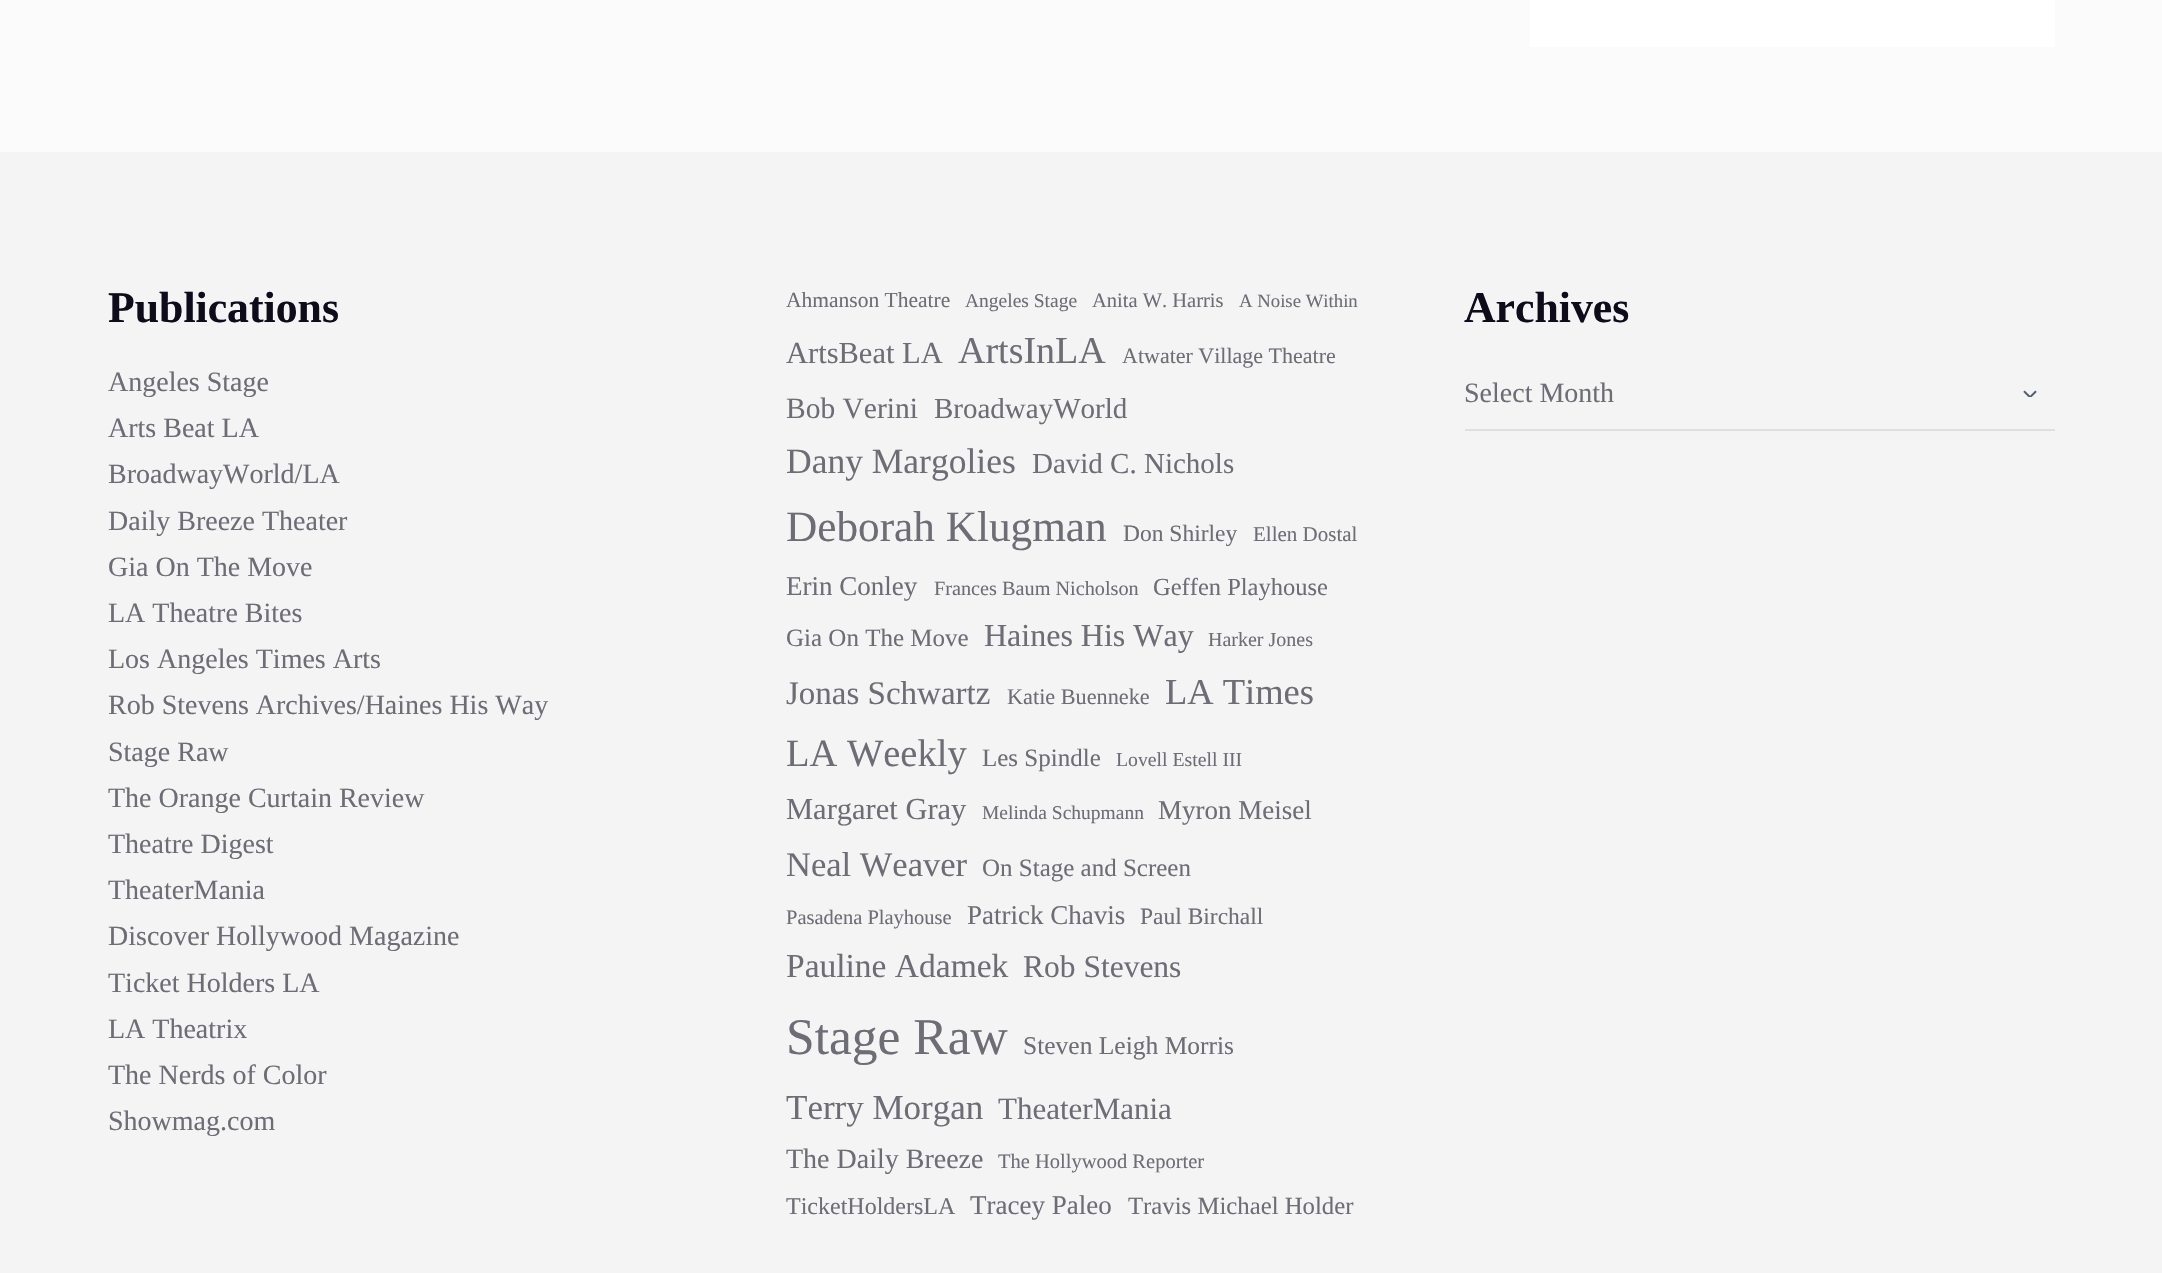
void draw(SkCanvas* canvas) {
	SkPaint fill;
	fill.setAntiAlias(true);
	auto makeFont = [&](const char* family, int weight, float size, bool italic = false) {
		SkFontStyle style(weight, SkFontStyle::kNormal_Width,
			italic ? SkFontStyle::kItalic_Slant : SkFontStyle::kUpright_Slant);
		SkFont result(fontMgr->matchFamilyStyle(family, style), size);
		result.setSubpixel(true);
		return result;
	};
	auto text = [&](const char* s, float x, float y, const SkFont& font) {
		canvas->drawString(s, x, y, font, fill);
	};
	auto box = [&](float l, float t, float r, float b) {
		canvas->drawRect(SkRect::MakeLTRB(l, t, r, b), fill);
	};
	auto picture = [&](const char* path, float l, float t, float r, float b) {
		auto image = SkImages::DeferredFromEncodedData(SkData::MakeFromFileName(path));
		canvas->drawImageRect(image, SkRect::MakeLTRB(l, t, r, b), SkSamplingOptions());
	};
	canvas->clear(0xFFFBFBFB);
	fill.setColor(0xFFFFFFFF);
	box(1530, 0, 2055, 47);
	fill.setColor(0xFFF4F4F5);
	box(0, 152, 2162, 1273);
	picture("image0.png", 2023, 390, 2037, 397);
	fill.setColor(0xFFDFDFE2);
	box(1465, 429, 2055, 431);
	auto font1 = makeFont("Liberation Serif", 700, 43.75f);
	fill.setColor(0xFF0E0C1B);
	text("Publications", 108, 322, font1);
	auto font2 = makeFont("Liberation Serif", 400, 28);
	fill.setColor(0xFF6E6D76);
	text("Angeles Stage", 108, 391, font2);
	text("Arts Beat LA", 108, 437, font2);
	text("BroadwayWorld/LA", 108, 483, font2);
	text("Daily Breeze Theater", 108, 530, font2);
	text("Gia On The Move", 108, 576, font2);
	text("LA Theatre Bites", 108, 622, font2);
	text("Los Angeles Times Arts", 108, 668, font2);
	text("Rob Stevens Archives/Haines His Way", 108, 714, font2);
	text("Stage Raw", 108, 761, font2);
	text("The Orange Curtain Review", 108, 807, font2);
	text("Theatre Digest", 108, 853, font2);
	text("TheaterMania", 108, 899, font2);
	text("Discover Hollywood Magazine", 108, 945, font2);
	text("Ticket Holders LA", 108, 992, font2);
	text("LA Theatrix", 108, 1038, font2);
	text("The Nerds of Color", 108, 1084, font2);
	text("Showmag.com", 108, 1130, font2);
	auto font3 = makeFont("Liberation Serif", 400, 21.5f);
	text("Ahmanson Theatre", 786, 307, font3);
	auto font4 = makeFont("Liberation Serif", 400, 19.5f);
	text("Angeles Stage", 965, 307, font4);
	auto font5 = makeFont("Liberation Serif", 400, 20.5f);
	text("Anita W. Harris", 1092, 307, font5);
	auto font6 = makeFont("Liberation Serif", 400, 18.75f);
	text("A Noise Within", 1239, 307, font6);
	auto font7 = makeFont("Liberation Serif", 400, 30.5f);
	text("ArtsBeat LA", 786, 363, font7);
	auto font8 = makeFont("Liberation Serif", 400, 38);
	text("ArtsInLA", 958, 363, font8);
	auto font9 = makeFont("Liberation Serif", 400, 22);
	text("Atwater Village Theatre", 1122, 363, font9);
	auto font10 = makeFont("Liberation Serif", 400, 29.5f);
	text("Bob Verini", 786, 418, font10);
	auto font11 = makeFont("Liberation Serif", 400, 29);
	text("BroadwayWorld", 934, 418, font11);
	auto font12 = makeFont("Liberation Serif", 400, 35.5f);
	text("Dany Margolies", 786, 473, font12);
	text("David C. Nichols", 1032, 473, font11);
	auto font13 = makeFont("Liberation Serif", 400, 43.25f);
	text("Deborah Klugman", 786, 541, font13);
	auto font14 = makeFont("Liberation Serif", 400, 23.5f);
	text("Don Shirley", 1123, 541, font14);
	auto font15 = makeFont("Liberation Serif", 400, 21);
	text("Ellen Dostal", 1253, 541, font15);
	auto font16 = makeFont("Liberation Serif", 400, 27);
	text("Erin Conley", 786, 595, font16);
	auto font17 = makeFont("Liberation Serif", 400, 20.25f);
	text("Frances Baum Nicholson", 934, 595, font17);
	auto font18 = makeFont("Liberation Serif", 400, 24.5f);
	text("Geffen Playhouse", 1153, 595, font18);
	auto font19 = makeFont("Liberation Serif", 400, 25);
	text("Gia On The Move", 786, 646, font19);
	auto font20 = makeFont("Liberation Serif", 400, 32);
	text("Haines His Way", 984, 646, font20);
	auto font21 = makeFont("Liberation Serif", 400, 20);
	text("Harker Jones", 1208, 646, font21);
	auto font22 = makeFont("Liberation Serif", 400, 33);
	text("Jonas Schwartz", 786, 704, font22);
	auto font23 = makeFont("Liberation Serif", 400, 22.25f);
	text("Katie Buenneke", 1007, 704, font23);
	auto font24 = makeFont("Liberation Serif", 400, 36.5f);
	text("LA Times", 1165, 704, font24);
	auto font25 = makeFont("Liberation Serif", 400, 38.5f);
	text("LA Weekly", 786, 766, font25);
	text("Les Spindle", 982, 766, font19);
	auto font26 = makeFont("Liberation Serif", 400, 19.75f);
	text("Lovell Estell III", 1116, 766, font26);
	text("Margaret Gray", 786, 819, font7);
	text("Melinda Schupmann", 982, 819, font4);
	text("Myron Meisel", 1158, 819, font16);
	auto font27 = makeFont("Liberation Serif", 400, 34.5f);
	text("Neal Weaver", 786, 876, font27);
	text("On Stage and Screen", 982, 876, font19);
	text("Pasadena Playhouse", 786, 924, font5);
	text("Patrick Chavis", 967, 924, font16);
	text("Paul Birchall", 1140, 924, font14);
	auto font28 = makeFont("Liberation Serif", 400, 33.5f);
	text("Pauline Adamek", 786, 977, font28);
	auto font29 = makeFont("Liberation Serif", 400, 31.5f);
	text("Rob Stevens", 1023, 977, font29);
	auto font30 = makeFont("Liberation Serif", 400, 51.5f);
	text("Stage Raw", 786, 1054, font30);
	auto font31 = makeFont("Liberation Serif", 400, 25.5f);
	text("Steven Leigh Morris", 1023, 1054, font31);
	auto font32 = makeFont("Liberation Serif", 400, 35);
	text("Terry Morgan", 786, 1119, font32);
	auto font33 = makeFont("Liberation Serif", 400, 31);
	text("TheaterMania", 998, 1119, font33);
	text("The Daily Breeze", 786, 1168, font2);
	text("The Hollywood Reporter", 998, 1168, font5);
	auto font34 = makeFont("Liberation Serif", 400, 24);
	text("TicketHoldersLA", 786, 1214, font34);
	text("Tracey Paleo", 970, 1214, font16);
	auto font35 = makeFont("Liberation Serif", 400, 24.75f);
	text("Travis Michael Holder", 1128, 1214, font35);
	fill.setColor(0xFF0E0C1B);
	text("Archives", 1464, 322, font1);
	fill.setColor(0xFF6E6D76);
	text("Select Month", 1464, 402, font2);
}
